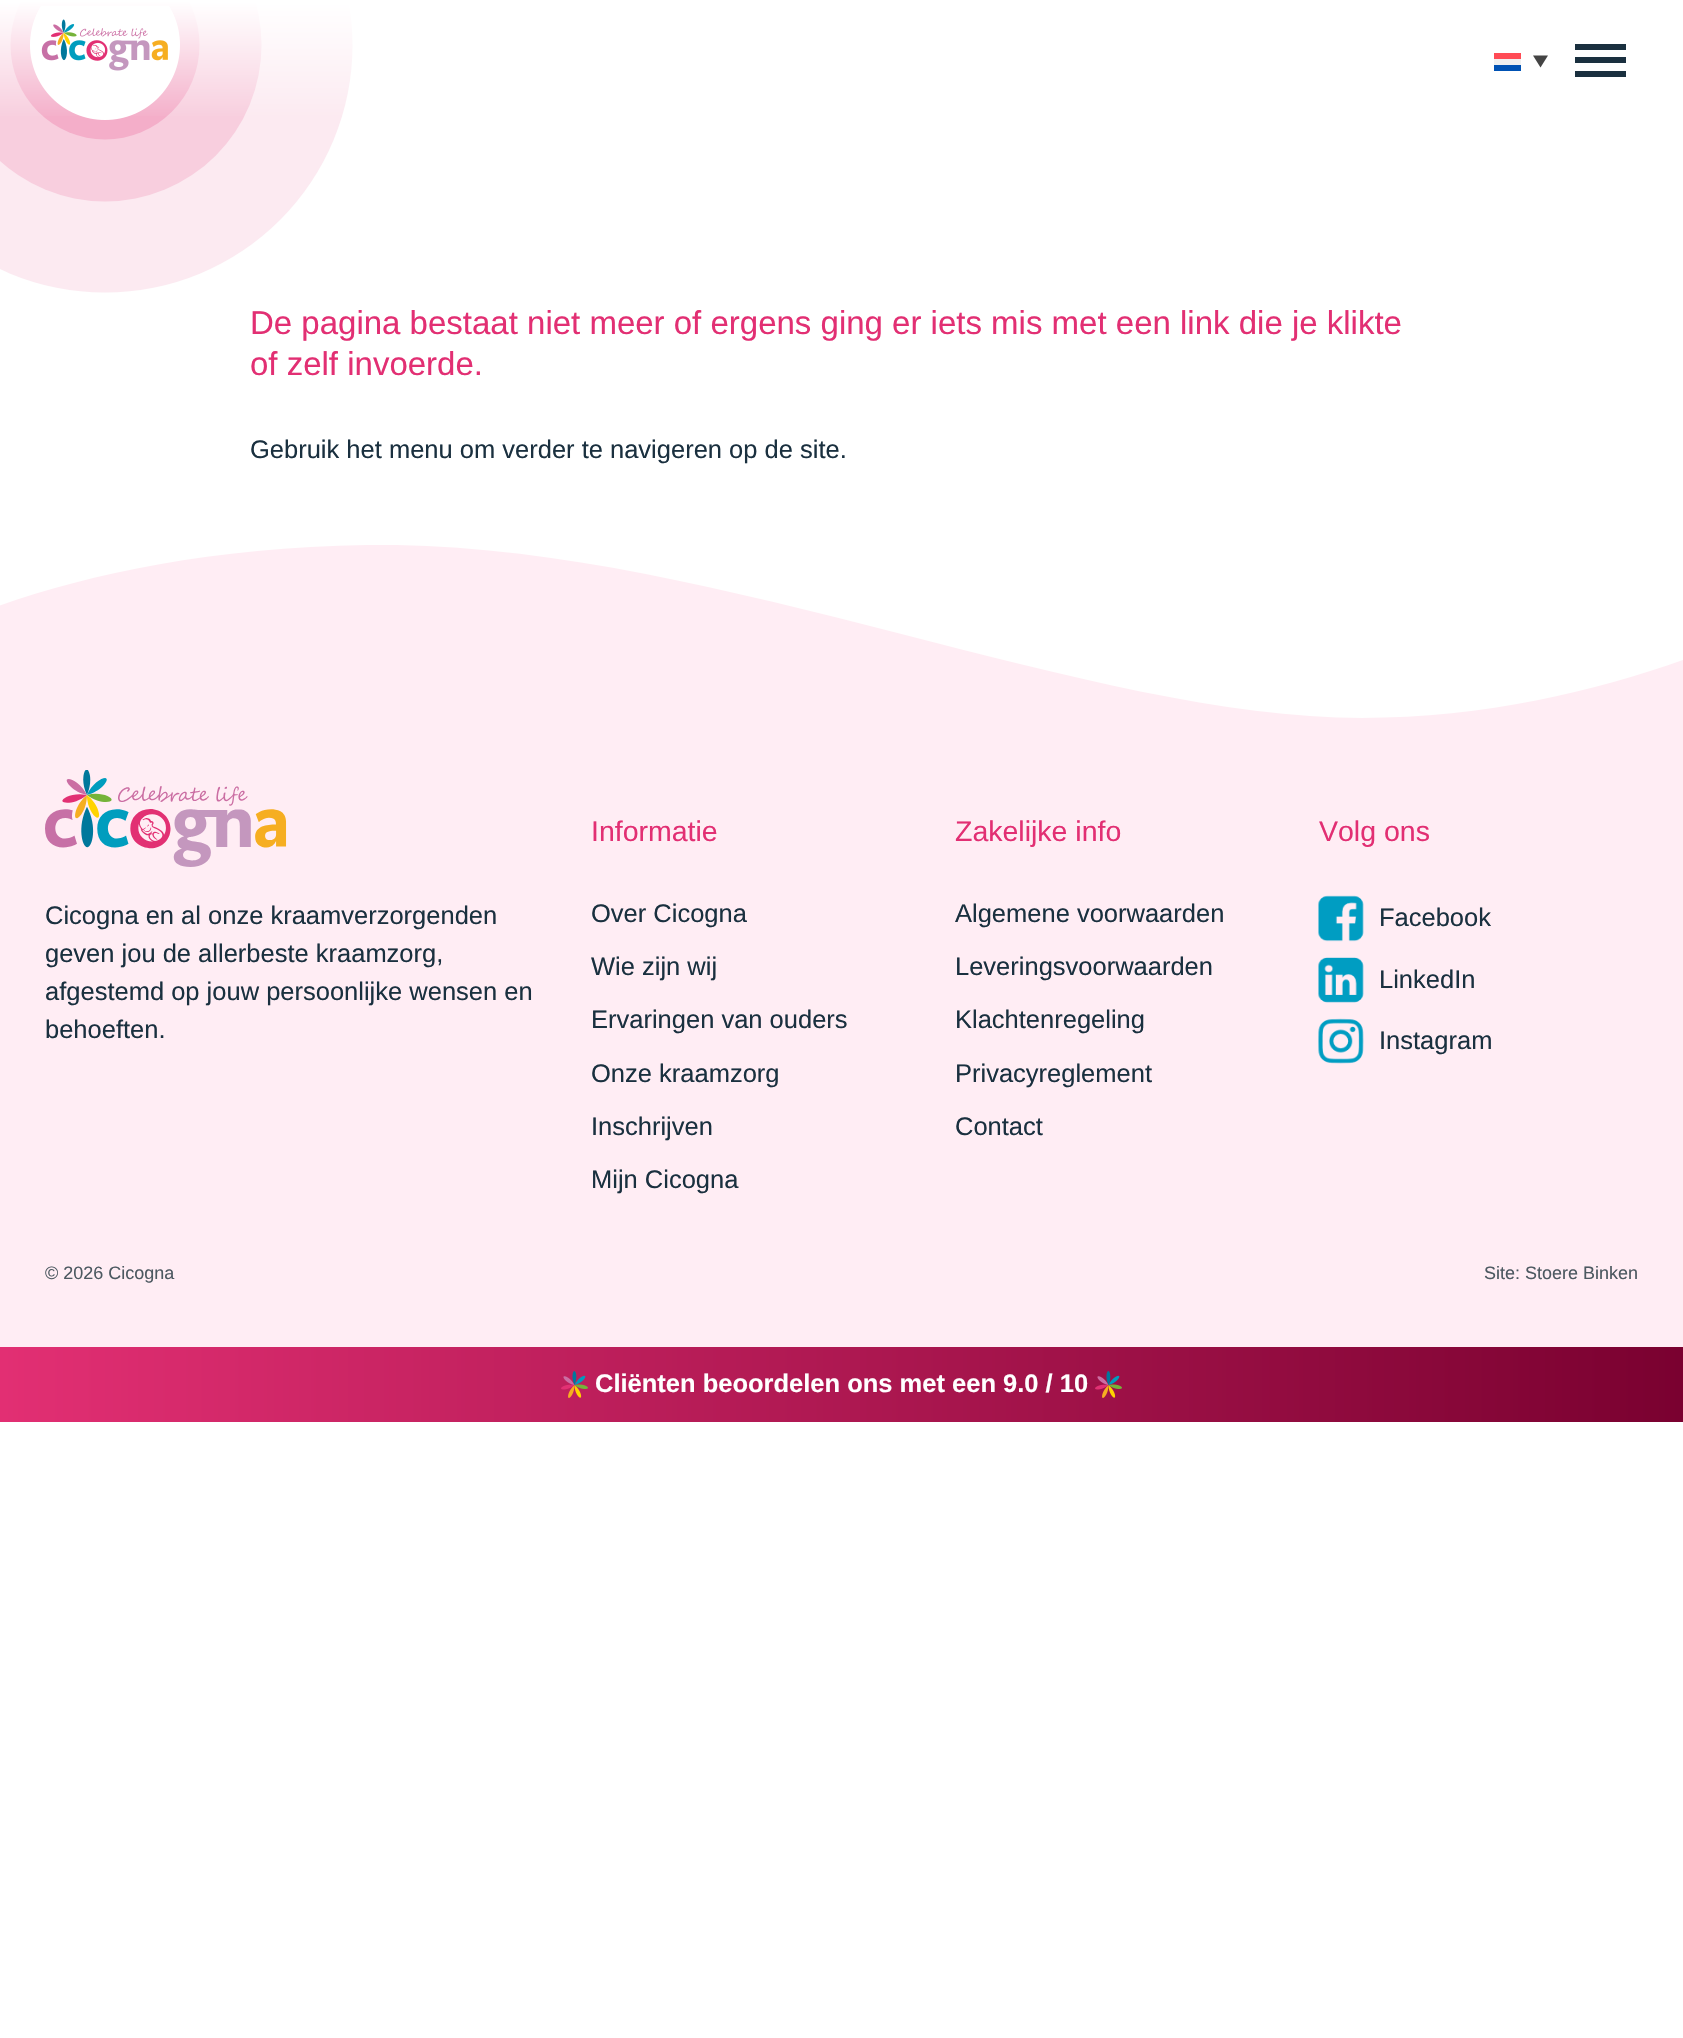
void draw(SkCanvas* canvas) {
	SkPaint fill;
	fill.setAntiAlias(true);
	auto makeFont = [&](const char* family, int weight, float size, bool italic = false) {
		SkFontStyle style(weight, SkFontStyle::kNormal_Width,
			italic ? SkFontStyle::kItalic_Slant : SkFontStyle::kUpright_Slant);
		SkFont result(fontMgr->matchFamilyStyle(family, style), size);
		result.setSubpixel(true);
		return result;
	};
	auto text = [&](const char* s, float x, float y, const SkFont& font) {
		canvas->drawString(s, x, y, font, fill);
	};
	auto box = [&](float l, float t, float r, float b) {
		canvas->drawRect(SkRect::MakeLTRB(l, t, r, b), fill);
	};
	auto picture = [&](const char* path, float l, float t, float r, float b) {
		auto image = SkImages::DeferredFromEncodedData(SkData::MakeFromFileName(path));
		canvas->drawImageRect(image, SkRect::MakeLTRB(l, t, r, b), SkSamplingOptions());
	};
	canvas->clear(0xFFFFFFFF);
	fill.setColor(0xFFFCEAF1);
	canvas->drawCircle(105, 45, 247.5f, fill);
	fill.setColor(0xFFF8CEDE);
	canvas->drawCircle(105, 45, 156.5f, fill);
	fill.setColor(0xFFF4AEC9);
	canvas->drawCircle(105, 45, 94.5f, fill);
	{
		const SkColor colors[] = {0xFFFFFFFF, 0x00FFFFFF};
		const float stops[] = {0, 1};
		const SkPoint ends[] = {{842, 0}, {842, 120}};
		fill.setShader(SkGradientShader::MakeLinear(ends, colors, stops, 2, SkTileMode::kClamp));
		fill.setAlpha(255);
	}
	box(0, 0, 353, 116);
	picture("image0.png", 30, 6, 180, 120);
	fill.setShader(nullptr);
	fill.setColor(0xFFFF4B55);
	box(1494, 53, 1521, 59);
	fill.setColor(0xFF444444);
	canvas->drawPath(SkPathBuilder().moveTo(1533, 55.5f).lineTo(1548, 55.5f).lineTo(1540.5f, 67.5f).close().detach(), fill);
	fill.setColor(0xFFF0F0F0);
	box(1494, 59, 1521, 65);
	fill.setColor(0xFF0052B4);
	box(1494, 65, 1521, 71);
	fill.setColor(0xFF1A303F);
	box(1575, 44, 1626, 50);
	box(1575, 57, 1626, 63);
	box(1575, 71, 1626, 77);
	canvas->save();
	canvas->clipRect(SkRect::MakeLTRB(0, 545, 1683, 1422));
	fill.setColor(0xFFFFEDF4);
	canvas->drawPath(SkPathBuilder().moveTo(-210, 1421).lineTo(-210, 718).cubicTo(-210, 718, -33, 551, 368, 545).cubicTo(700, 540, 1081, 718, 1362, 718).cubicTo(1644, 718, 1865, 575, 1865, 575).lineTo(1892, 559).lineTo(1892, 1421).close().detach(), fill);
	canvas->restore();
	picture("image1.png", 45, 770, 287, 867);
	picture("image2.png", 1318, 895, 1364, 942);
	picture("image3.png", 1318, 957, 1364, 1003);
	picture("image4.png", 1318, 1018, 1364, 1064);
	{
		const SkColor colors[] = {0xFFE22F73, 0xFF7A0130};
		const float stops[] = {0, 1};
		const SkPoint ends[] = {{0, 1385}, {1683, 1385}};
		fill.setShader(SkGradientShader::MakeLinear(ends, colors, stops, 2, SkTileMode::kClamp));
		fill.setAlpha(255);
	}
	box(0, 1347, 1683, 1422);
	picture("image5.png", 561, 1371, 588, 1398);
	picture("image6.png", 1095, 1371, 1122, 1398);
	auto font1 = makeFont("Liberation Sans", 400, 33);
	fill.setShader(nullptr);
	fill.setColor(0xFFE22F73);
	text("De pagina bestaat niet meer of ergens ging er iets mis met een link die je klikte", 250, 334, font1);
	text("of zelf invoerde.", 250, 375, font1);
	auto font2 = makeFont("Liberation Sans", 400, 25.5f);
	fill.setColor(0xFF1A303F);
	text("Gebruik het menu om verder te navigeren op de site.", 250, 458, font2);
	text("Cicogna en al onze kraamverzorgenden", 45, 924, font2);
	text("geven jou de allerbeste kraamzorg,", 45, 962, font2);
	text("afgestemd op jouw persoonlijke wensen en", 45, 1000, font2);
	text("behoeften.", 45, 1038, font2);
	auto font3 = makeFont("Liberation Sans", 400, 28.5f);
	fill.setColor(0xFFE22F73);
	text("Informatie", 591, 841, font3);
	fill.setColor(0xFF1A303F);
	text("Over Cicogna", 591, 922, font2);
	text("Wie zijn wij", 591, 975, font2);
	text("Ervaringen van ouders", 591, 1028, font2);
	text("Onze kraamzorg", 591, 1082, font2);
	text("Inschrijven", 591, 1135, font2);
	text("Mijn Cicogna", 591, 1188, font2);
	fill.setColor(0xFFE22F73);
	text("Zakelijke info", 955, 841, font3);
	fill.setColor(0xFF1A303F);
	text("Algemene voorwaarden", 955, 922, font2);
	text("Leveringsvoorwaarden", 955, 975, font2);
	text("Klachtenregeling", 955, 1028, font2);
	text("Privacyreglement", 955, 1082, font2);
	text("Contact", 955, 1135, font2);
	fill.setColor(0xFFE22F73);
	text("Volg ons", 1319, 841, font3);
	fill.setColor(0xFF1A303F);
	text("Facebook", 1379, 926, font2);
	text("LinkedIn", 1379, 988, font2);
	text("Instagram", 1379, 1049, font2);
	auto font4 = makeFont("Liberation Sans", 400, 18);
	fill.setColor(0xFF4D5961);
	text("© 2026 Cicogna", 45, 1279, font4);
	text("Site: Stoere Binken", 1484, 1279, font4);
	auto font5 = makeFont("Liberation Sans", 700, 25.5f);
	fill.setColor(0xFFFFFFFF);
	text("Cliënten beoordelen ons met een 9.0 / 10", 595, 1392, font5);
}
